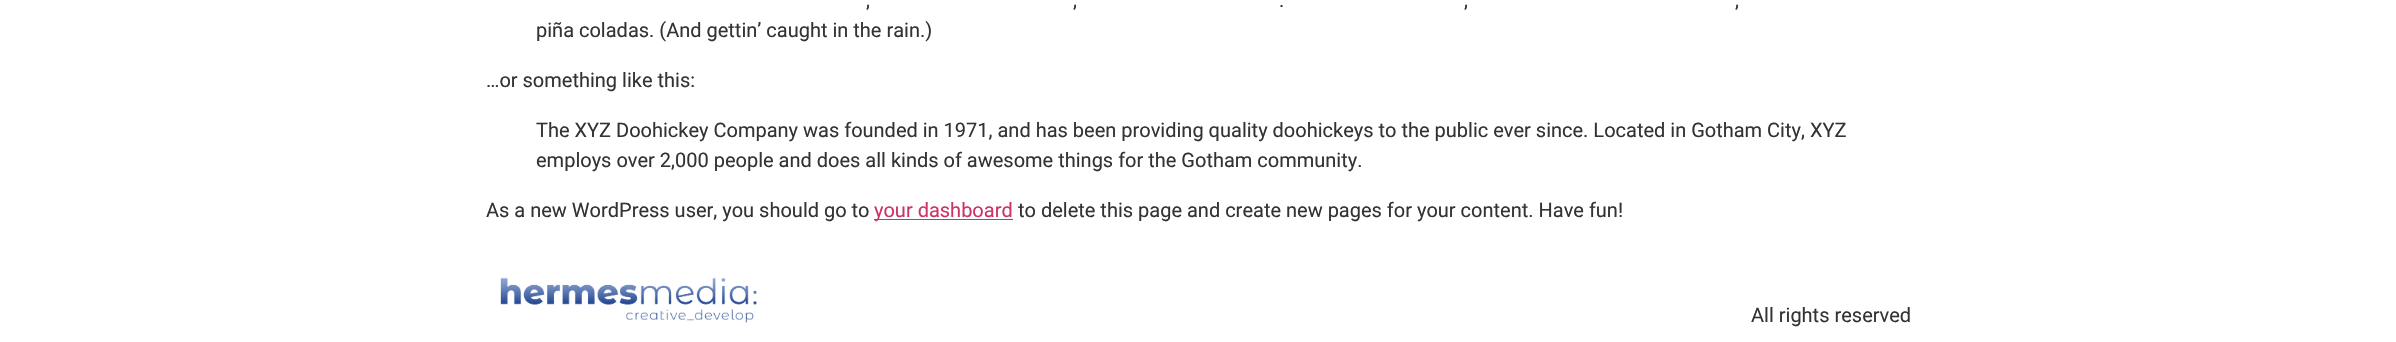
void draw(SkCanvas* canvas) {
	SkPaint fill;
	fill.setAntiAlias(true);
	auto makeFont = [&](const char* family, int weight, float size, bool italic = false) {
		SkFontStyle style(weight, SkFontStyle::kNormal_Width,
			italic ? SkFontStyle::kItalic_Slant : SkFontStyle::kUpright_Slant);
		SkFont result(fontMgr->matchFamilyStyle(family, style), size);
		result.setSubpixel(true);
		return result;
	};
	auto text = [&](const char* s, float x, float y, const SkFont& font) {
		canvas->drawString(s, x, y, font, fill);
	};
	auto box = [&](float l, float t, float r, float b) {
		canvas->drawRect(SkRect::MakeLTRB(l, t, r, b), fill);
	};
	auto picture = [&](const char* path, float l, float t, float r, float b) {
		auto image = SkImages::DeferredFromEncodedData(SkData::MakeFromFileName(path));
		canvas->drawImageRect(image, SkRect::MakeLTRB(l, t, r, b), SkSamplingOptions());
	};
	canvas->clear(0xFFFFFFFF);
	fill.setColor(0xFFCC3366);
	box(874, 219, 1013, 220);
	picture("image0.png", 500, 277, 757, 323);
	auto font1 = makeFont("Roboto", 400, 20);
	fill.setColor(0xFF333333);
	text(",", 866, 7, font1);
	text(",", 1073, 7, font1);
	text(".", 1279, 7, font1);
	text(",", 1464, 7, font1);
	text(",", 1735, 7, font1);
	text("piña coladas. (And gettin’ caught in the rain.)", 536, 37, font1);
	text("…or something like this:", 486, 87, font1);
	text("The XYZ Doohickey Company was founded in 1971, and has been providing quality doohickeys to the public ever since. Located in Gotham City, XYZ", 536, 137, font1);
	text("employs over 2,000 people and does all kinds of awesome things for the Gotham community.", 536, 167, font1);
	text("As a new WordPress user, you should go to", 486, 217, font1);
	fill.setColor(0xFFCC3366);
	text("your dashboard", 874, 217, font1);
	fill.setColor(0xFF333333);
	text("to delete this page and create new pages for your content. Have fun!", 1018, 217, font1);
	text("All rights reserved", 1751, 322, font1);
}
